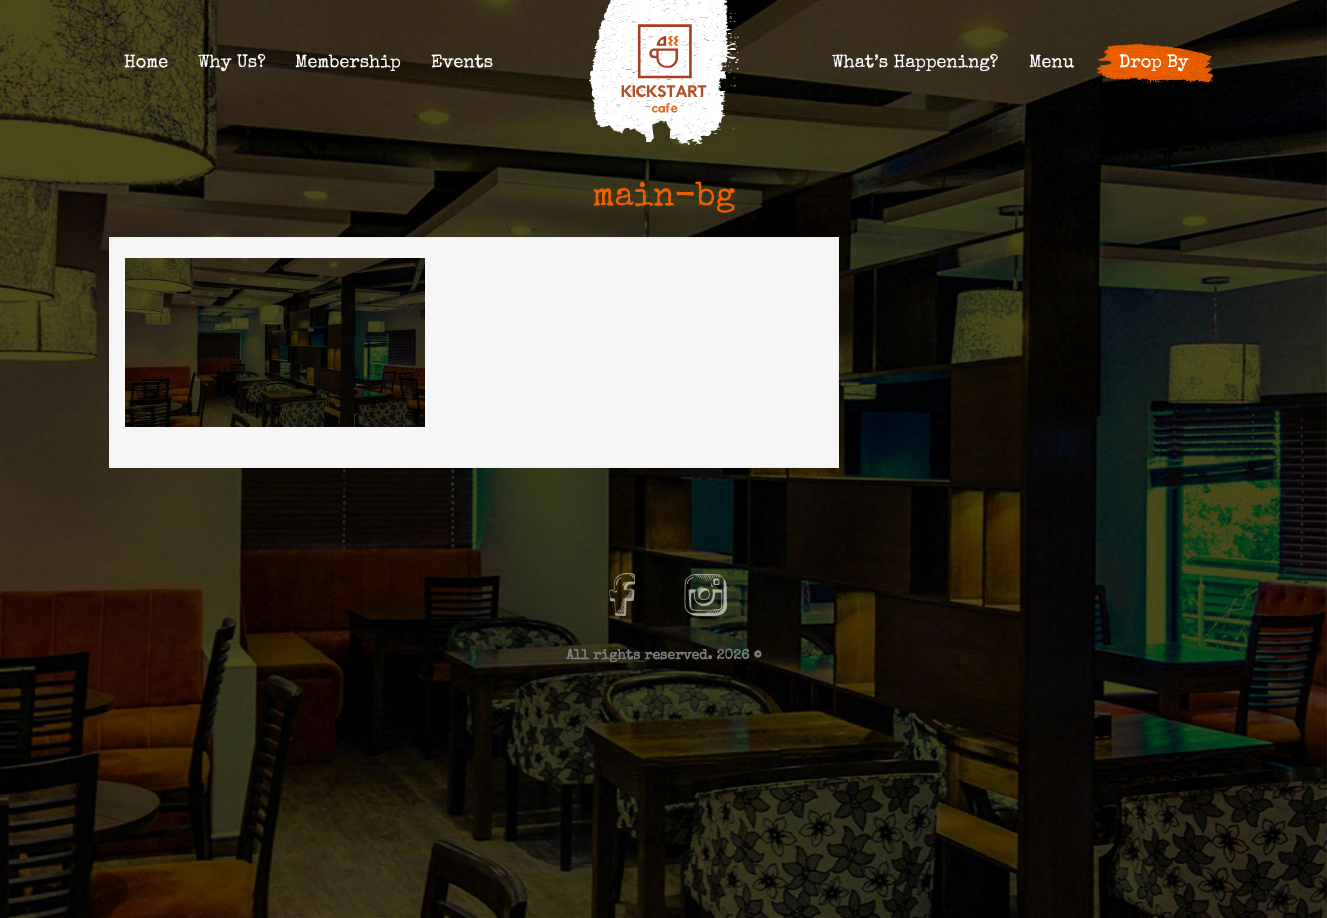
void draw(SkCanvas* canvas) {
	SkPaint fill;
	fill.setAntiAlias(true);
	auto makeFont = [&](const char* family, int weight, float size, bool italic = false) {
		SkFontStyle style(weight, SkFontStyle::kNormal_Width,
			italic ? SkFontStyle::kItalic_Slant : SkFontStyle::kUpright_Slant);
		SkFont result(fontMgr->matchFamilyStyle(family, style), size);
		result.setSubpixel(true);
		return result;
	};
	auto text = [&](const char* s, float x, float y, const SkFont& font) {
		canvas->drawString(s, x, y, font, fill);
	};
	auto picture = [&](const char* path, float l, float t, float r, float b) {
		auto image = SkImages::DeferredFromEncodedData(SkData::MakeFromFileName(path));
		canvas->drawImageRect(image, SkRect::MakeLTRB(l, t, r, b), SkSamplingOptions());
	};
	canvas->clear(0xFFFFFFFF);
	picture("image0.png", 0, 0, 1327, 918);
	picture("image1.png", 589, 0, 739, 150);
	picture("image2.png", 1094, 44, 1213, 83);
	fill.setColor(0xFFF6F6F6);
	canvas->drawRect(SkRect::MakeLTRB(109.5f, 237.5f, 838.5f, 467.5f), fill);
	fill.setStyle(SkPaint::kStroke_Style);
	fill.setStrokeWidth(1);
	fill.setColor(0xFFEEEEEE);
	canvas->drawRect(SkRect::MakeLTRB(109.5f, 237.5f, 838.5f, 467.5f), fill);
	picture("image3.png", 125, 258, 425, 427);
	picture("image4.png", 609, 573, 635, 616);
	picture("image5.png", 684, 573, 727, 616);
	auto font1 = makeFont("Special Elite", 400, 18);
	fill.setStyle(SkPaint::kFill_Style);
	fill.setColor(0xFFFFFFFF);
	text("Home", 124, 67, font1);
	text("Why Us?", 198, 67, font1);
	text("Membership", 295, 67, font1);
	text("Events", 431, 67, font1);
	text("What’s Happening?", 832, 67, font1);
	text("Menu", 1029, 67, font1);
	text("Drop By", 1119, 67, font1);
	auto font2 = makeFont("Special Elite", 400, 34);
	fill.setColor(0xFFEF5F01);
	text("main-bg", 592, 205, font2);
	auto font3 = makeFont("Special Elite", 700, 14);
	fill.setColor(0xFF7F7F7F);
	text("All rights reserved. 2026 ©", 566, 659, font3);
}
